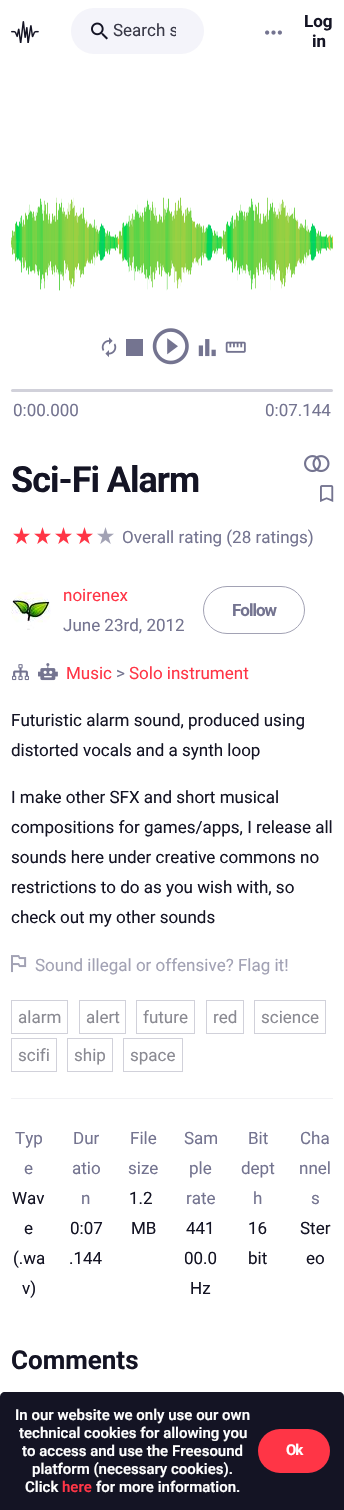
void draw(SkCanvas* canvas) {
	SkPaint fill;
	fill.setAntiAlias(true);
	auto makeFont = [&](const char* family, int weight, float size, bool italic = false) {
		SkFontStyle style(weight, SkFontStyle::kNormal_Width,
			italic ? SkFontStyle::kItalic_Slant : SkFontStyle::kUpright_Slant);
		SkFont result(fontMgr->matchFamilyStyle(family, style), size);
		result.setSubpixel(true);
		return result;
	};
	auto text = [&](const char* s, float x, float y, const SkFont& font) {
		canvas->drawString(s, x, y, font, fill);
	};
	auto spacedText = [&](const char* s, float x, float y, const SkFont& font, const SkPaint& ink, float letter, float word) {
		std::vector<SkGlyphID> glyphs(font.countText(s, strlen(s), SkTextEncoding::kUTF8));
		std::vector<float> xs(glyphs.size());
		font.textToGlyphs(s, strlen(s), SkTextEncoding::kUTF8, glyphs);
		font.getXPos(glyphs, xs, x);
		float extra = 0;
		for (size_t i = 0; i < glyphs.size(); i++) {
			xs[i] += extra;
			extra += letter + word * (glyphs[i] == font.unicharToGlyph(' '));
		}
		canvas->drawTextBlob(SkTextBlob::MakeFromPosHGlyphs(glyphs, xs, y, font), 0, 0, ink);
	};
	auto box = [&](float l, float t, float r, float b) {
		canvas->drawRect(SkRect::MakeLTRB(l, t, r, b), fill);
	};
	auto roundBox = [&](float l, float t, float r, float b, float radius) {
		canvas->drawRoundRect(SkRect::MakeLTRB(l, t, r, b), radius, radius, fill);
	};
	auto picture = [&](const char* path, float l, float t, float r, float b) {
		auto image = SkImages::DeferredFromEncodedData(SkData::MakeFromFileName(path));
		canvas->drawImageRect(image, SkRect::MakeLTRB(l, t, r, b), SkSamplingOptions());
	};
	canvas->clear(0xFFFFFFFF);
	picture("image0.png", 11, 21, 39, 43);
	fill.setColor(0xFFF4F4FA);
	roundBox(71, 8, 204, 54, 23);
	picture("image1.png", 91, 22, 108, 40);
	picture("image2.png", 265, 30, 282, 35);
	picture("image3.png", 11, 197, 333, 291);
	picture("image4.png", 101, 337, 117, 358);
	fill.setColor(0xFF747490);
	box(126, 339, 143, 356);
	picture("image5.png", 152, 328, 189, 365);
	picture("image6.png", 198, 339, 216, 357);
	picture("image7.png", 225, 341, 246, 353);
	fill.setColor(0xFFD1D1DA);
	roundBox(11, 389, 333, 392, 1.5f);
	picture("image8.png", 304, 455, 330, 473);
	picture("image9.png", 320, 485, 334, 502);
	picture("image10.png", 13, 527, 30, 544);
	picture("image10.png", 34, 527, 51, 544);
	picture("image10.png", 55, 527, 72, 544);
	picture("image10.png", 76, 527, 93, 544);
	picture("image11.png", 97, 527, 114, 544);
	picture("image12.png", 11, 590, 51, 630);
	fill.setStyle(SkPaint::kStroke_Style);
	fill.setStrokeWidth(1);
	fill.setColor(0xFFA2A2B4);
	canvas->drawRoundRect(SkRect::MakeLTRB(203.5f, 586.5f, 304.5f, 633.5f), 23.5f, 23.5f, fill);
	picture("image13.png", 12, 664, 29, 681);
	picture("image14.png", 38, 663, 58, 681);
	picture("image15.png", 11, 955, 27, 973);
	fill.setColor(0xFFD1D1DA);
	canvas->drawRect(SkRect::MakeLTRB(11.5f, 1000.5f, 67.5f, 1033.5f), fill);
	canvas->drawRect(SkRect::MakeLTRB(79.5f, 1000.5f, 125.5f, 1033.5f), fill);
	canvas->drawRect(SkRect::MakeLTRB(136.5f, 1000.5f, 194.5f, 1033.5f), fill);
	canvas->drawRect(SkRect::MakeLTRB(206.5f, 1000.5f, 243.5f, 1033.5f), fill);
	canvas->drawRect(SkRect::MakeLTRB(254.5f, 1000.5f, 325.5f, 1033.5f), fill);
	canvas->drawRect(SkRect::MakeLTRB(11.5f, 1038.5f, 56.5f, 1071.5f), fill);
	canvas->drawRect(SkRect::MakeLTRB(67.5f, 1038.5f, 112.5f, 1071.5f), fill);
	canvas->drawRect(SkRect::MakeLTRB(123.5f, 1038.5f, 182.5f, 1071.5f), fill);
	fill.setStyle(SkPaint::kFill_Style);
	fill.setColor(0xFFF1F1F4);
	box(11, 1098, 333, 1099);
	fill.setColor(0xFF141424);
	canvas->drawPath(SkPathBuilder().moveTo(5, 1392).lineTo(339, 1392).cubicTo(342, 1392, 344, 1394, 344, 1397).lineTo(344, 1510).lineTo(0, 1510).lineTo(0, 1397).cubicTo(0, 1394, 2, 1392, 5, 1392).close().detach(), fill);
	fill.setColor(0xFFFF3546);
	roundBox(258, 1429, 330, 1473, 22);
	canvas->save();
	canvas->clipRect(SkRect::MakeLTRB(113, 20, 176, 40));
	auto font1 = makeFont("Roboto", 400, 17);
	fill.setColor(0xFF393947);
	text("Search s", 113, 36, font1);
	canvas->restore();
	auto font2 = makeFont("Roboto", 700, 17);
	fill.setColor(0xFF141424);
	text("Log", 304, 27, font2);
	text("in", 312, 47, font2);
	fill.setColor(0xFF747490);
	text("0:00.000", 13, 416, font1);
	text("0:07.144", 265, 416, font1);
	auto font3 = makeFont("Roboto", 700, 36);
	fill.setColor(0xFF141424);
	spacedText("Sci-Fi Alarm", 11, 492, font3, fill, -1, 0);
	fill.setColor(0xFF747490);
	text("Overall rating (28 ratings)", 122, 543, font1);
	fill.setColor(0xFFFF3546);
	text("noirenex", 63, 601, font1);
	fill.setColor(0xFF747490);
	text("June 23rd, 2012", 63, 631, font1);
	spacedText("Follow", 232, 616, font2, fill, -1, 0);
	fill.setColor(0xFFFF3546);
	text("Music", 66, 679, font1);
	fill.setColor(0xFF747490);
	text(">", 116, 679, font1);
	fill.setColor(0xFFFF3546);
	text("Solo instrument", 129, 679, font1);
	fill.setColor(0xFF141424);
	text("Futuristic alarm sound, produced using", 11, 726, font1);
	text("distorted vocals and a synth loop", 11, 756, font1);
	text("I make other SFX and short musical", 11, 803, font1);
	text("compositions for games/apps, I release all", 11, 833, font1);
	text("sounds here under creative commons no", 11, 863, font1);
	text("restrictions to do as you wish with, so", 11, 893, font1);
	text("check out my other sounds", 11, 923, font1);
	fill.setColor(0xFFA2A2B4);
	text("Sound illegal or offensive? Flag it!", 35, 971, font1);
	fill.setColor(0xFF8A8A92);
	text("alarm", 18, 1023, font1);
	text("alert", 86, 1023, font1);
	text("future", 143, 1023, font1);
	text("red", 213, 1023, font1);
	text("science", 261, 1023, font1);
	text("scifi", 18, 1061, font1);
	text("ship", 74, 1061, font1);
	text("space", 130, 1061, font1);
	fill.setColor(0xFF747490);
	text("Typ", 15, 1144, font1);
	text("e", 24, 1174, font1);
	fill.setColor(0xFF141424);
	text("Wav", 12, 1204, font1);
	text("e", 24, 1234, font1);
	text("(.wa", 13, 1264, font1);
	text("v)", 22, 1294, font1);
	fill.setColor(0xFF747490);
	text("Dur", 73, 1144, font1);
	text("atio", 72, 1174, font1);
	text("n", 81, 1204, font1);
	fill.setColor(0xFF141424);
	text("0:07", 70, 1234, font1);
	text(".144", 69, 1264, font1);
	fill.setColor(0xFF747490);
	text("File", 130, 1144, font1);
	text("size", 128, 1174, font1);
	fill.setColor(0xFF141424);
	text("1.2", 129, 1204, font1);
	text("MB", 131, 1234, font1);
	fill.setColor(0xFF747490);
	text("Sam", 184, 1144, font1);
	text("ple", 189, 1174, font1);
	text("rate", 186, 1204, font1);
	fill.setColor(0xFF141424);
	text("441", 186, 1234, font1);
	text("00.0", 184, 1264, font1);
	text("Hz", 190, 1294, font1);
	fill.setColor(0xFF747490);
	text("Bit", 248, 1144, font1);
	text("dept", 241, 1174, font1);
	text("h", 253, 1204, font1);
	fill.setColor(0xFF141424);
	text("16", 248, 1234, font1);
	text("bit", 248, 1264, font1);
	fill.setColor(0xFF747490);
	text("Cha", 300, 1144, font1);
	text("nnel", 299, 1174, font1);
	text("s", 311, 1204, font1);
	fill.setColor(0xFF141424);
	text("Ster", 300, 1234, font1);
	text("eo", 306, 1264, font1);
	auto font4 = makeFont("Roboto", 700, 26);
	text("Comments", 11, 1369, font4);
	auto font5 = makeFont("Roboto", 600, 15);
	fill.setColor(0xFFFFFFFF);
	text("In our website we only use our own", 15, 1420, font5);
	text("technical cookies for allowing you", 19, 1438, font5);
	text("to access and use the Freesound", 22, 1456, font5);
	text("platform (necessary cookies).", 32, 1474, font5);
	text("Click", 25, 1492, font5);
	fill.setColor(0xFFFF3546);
	text("here", 62, 1492, font5);
	fill.setColor(0xFFFFFFFF);
	text("for more information.", 96, 1492, font5);
	auto font6 = makeFont("Roboto", 700, 15);
	spacedText("Ok", 286, 1455, font6, fill, -1, 0);
}
